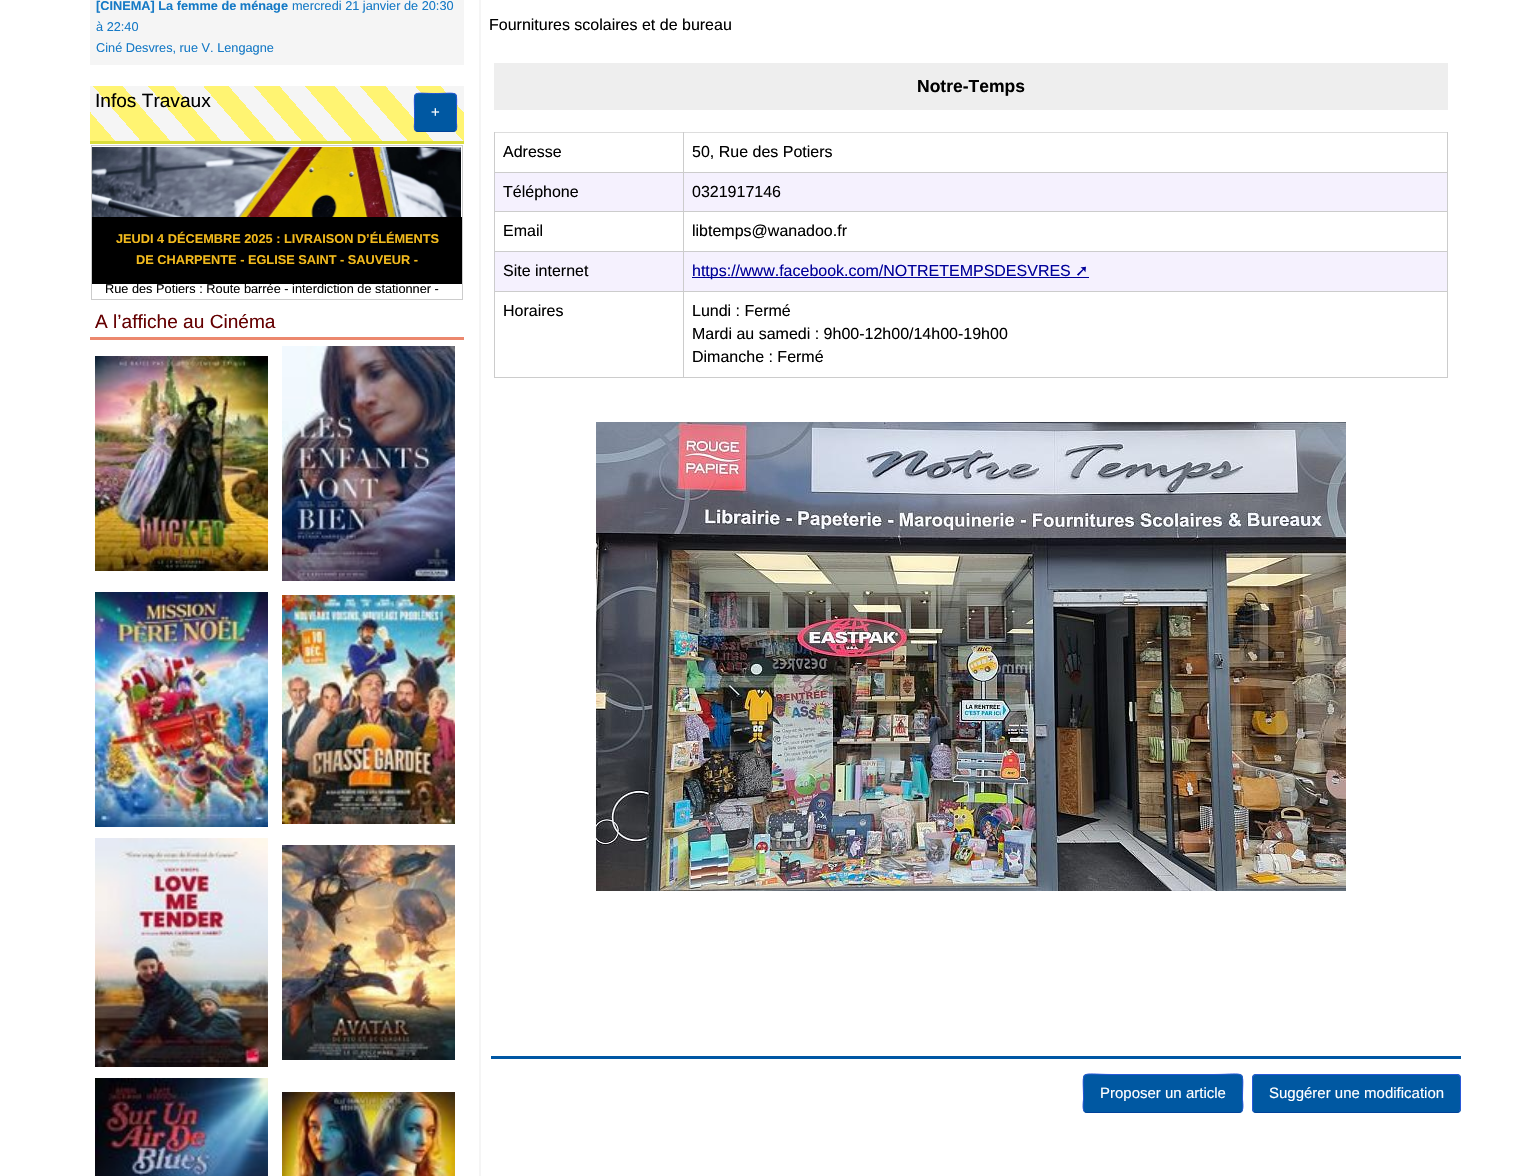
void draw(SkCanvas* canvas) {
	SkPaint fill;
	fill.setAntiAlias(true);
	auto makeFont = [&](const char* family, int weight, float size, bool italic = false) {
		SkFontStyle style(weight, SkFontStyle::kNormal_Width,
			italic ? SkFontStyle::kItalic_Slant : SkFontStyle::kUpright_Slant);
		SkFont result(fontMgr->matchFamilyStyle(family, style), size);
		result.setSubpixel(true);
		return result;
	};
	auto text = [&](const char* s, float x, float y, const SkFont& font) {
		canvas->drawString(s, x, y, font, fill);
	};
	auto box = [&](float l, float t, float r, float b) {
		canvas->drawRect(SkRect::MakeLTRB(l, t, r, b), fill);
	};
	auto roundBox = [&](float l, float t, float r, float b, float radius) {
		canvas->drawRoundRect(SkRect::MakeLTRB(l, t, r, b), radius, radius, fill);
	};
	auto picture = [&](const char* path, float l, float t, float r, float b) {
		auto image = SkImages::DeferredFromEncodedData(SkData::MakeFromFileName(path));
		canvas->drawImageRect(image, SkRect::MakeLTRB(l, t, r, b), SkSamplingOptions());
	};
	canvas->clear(0xFFFFFFFF);
	fill.setColor(0xFFF5F5F5);
	box(90, 0, 464, 65);
	{
		const SkColor colors[] = {0xFFFFF472, 0xFFFFF472, 0xFFF5F5F5, 0xFFF5F5F5, 0xFFFFF472, 0xFFFFF472, 0xFFF5F5F5, 0xFFF5F5F5, 0xFFFFF472, 0xFFFFF472, 0xFFF5F5F5, 0xFFF5F5F5, 0xFFFFF472, 0xFFFFF472, 0xFFF5F5F5, 0xFFF5F5F5, 0xFFFFF472, 0xFFFFF472, 0xFFF5F5F5, 0xFFF5F5F5, 0xFFFFF472, 0xFFFFF472, 0xFFF5F5F5, 0xFFF5F5F5, 0xFFFFF472, 0xFFFFF472, 0xFFF5F5F5, 0xFFF5F5F5, 0xFFFFF472, 0xFFFFF472, 0xFFF5F5F5, 0xFFF5F5F5};
		const float stops[] = {0, 0.06f, 0.06f, 0.12f, 0.12f, 0.19f, 0.19f, 0.25f, 0.25f, 0.31f, 0.31f, 0.38f, 0.38f, 0.44f, 0.44f, 0.5f, 0.5f, 0.56f, 0.56f, 0.62f, 0.62f, 0.69f, 0.69f, 0.75f, 0.75f, 0.81f, 0.81f, 0.88f, 0.88f, 0.94f, 0.94f, 1};
		const SkPoint ends[] = {{157, 218}, {398, 8}};
		fill.setShader(SkGradientShader::MakeLinear(ends, colors, stops, 32, SkTileMode::kClamp));
		fill.setAlpha(255);
	}
	box(90, 86, 464, 141);
	fill.setShader(nullptr);
	fill.setColor(0xFFDADD3B);
	box(90, 141, 464, 144);
	fill.setColor(0xFF0058A2);
	roundBox(414, 93, 457, 132, 4);
	fill.setStyle(SkPaint::kStroke_Style);
	fill.setStrokeWidth(1);
	fill.setColor(0xFF004299);
	canvas->drawPath(SkPathBuilder().moveTo(455.5f, 130.5f).lineTo(453, 131.5f).lineTo(418, 131.5f).lineTo(415.5f, 130.5f).detach(), fill);
	fill.setColor(0xFF2A59D9);
	canvas->drawPath(SkPathBuilder().moveTo(415.5f, 130.5f).cubicTo(413.5f, 129, 414.5f, 124.5f, 414.5f, 123).lineTo(414.5f, 112.5f).cubicTo(414.5f, 89, 411, 93.5f, 435.5f, 93.5f).cubicTo(460, 93.5f, 456.5f, 89, 456.5f, 112.5f).lineTo(456.5f, 123).cubicTo(456.5f, 124.5f, 457.5f, 129, 455.5f, 130.5f).detach(), fill);
	fill.setColor(0xFFCCCCCC);
	canvas->drawRect(SkRect::MakeLTRB(91.5f, 145.5f, 462.5f, 299.5f), fill);
	picture("image0.png", 92, 147, 461, 217);
	fill.setStyle(SkPaint::kFill_Style);
	fill.setColor(0xFF000000);
	box(92, 217, 462, 284);
	fill.setColor(0xFFEC886E);
	box(90, 337, 464, 340);
	picture("image1.png", 95, 356, 268, 571);
	picture("image2.png", 282, 346, 455, 581);
	picture("image3.png", 95, 592, 268, 827);
	picture("image4.png", 282, 595, 455, 824);
	picture("image5.png", 95, 838, 268, 1067);
	picture("image6.png", 282, 845, 455, 1060);
	picture("image7.png", 95, 1078, 268, 1176);
	picture("image8.png", 282, 1092, 455, 1176);
	fill.setColor(0xFFF5F5F5);
	box(479, 0, 481, 1176);
	fill.setColor(0xFFEEEEEE);
	box(494, 63, 1448, 110);
	fill.setColor(0xFFDDDDDD);
	box(494, 132, 1448, 133);
	fill.setColor(0xFFCCCCCC);
	box(1447, 172, 1448, 378);
	box(1447, 132, 1448, 173);
	box(683, 377, 1448, 378);
	box(683, 291, 684, 378);
	box(683, 291, 1448, 292);
	box(683, 251, 684, 292);
	box(683, 251, 1448, 252);
	box(683, 211, 684, 252);
	box(683, 211, 1448, 212);
	box(683, 172, 684, 212);
	box(683, 172, 1448, 173);
	box(683, 132, 684, 173);
	box(494, 377, 684, 378);
	box(494, 291, 495, 378);
	box(494, 291, 684, 292);
	box(494, 251, 495, 292);
	box(494, 251, 684, 252);
	box(494, 211, 495, 252);
	box(494, 211, 684, 212);
	box(494, 172, 495, 212);
	box(494, 172, 684, 173);
	box(494, 132, 495, 173);
	fill.setColor(0xFFF5F1FE);
	box(495, 173, 683, 211);
	box(684, 173, 1447, 211);
	box(495, 252, 683, 291);
	box(684, 252, 1447, 291);
	fill.setColor(0xFF000099);
	box(692, 277, 1089, 278);
	picture("image9.png", 596, 422, 1346, 891);
	fill.setColor(0xFF0057A4);
	box(491, 1056, 1461, 1059);
	fill.setColor(0xFF0058A2);
	roundBox(1083, 1074, 1243, 1113, 4);
	fill.setStyle(SkPaint::kStroke_Style);
	fill.setColor(0xFF004299);
	canvas->drawPath(SkPathBuilder().moveTo(1241.5f, 1111.5f).lineTo(1239, 1112.5f).lineTo(1086.5f, 1112.5f).lineTo(1084.5f, 1111.5f).detach(), fill);
	fill.setColor(0xFF2A59D9);
	canvas->drawPath(SkPathBuilder().moveTo(1084.5f, 1111.5f).cubicTo(1082, 1109.5f, 1083.5f, 1101, 1083.5f, 1099).cubicTo(1083.5f, 1068, 1078, 1074.5f, 1112, 1074.5f).lineTo(1214, 1074.5f).cubicTo(1248, 1074.5f, 1242.5f, 1068, 1242.5f, 1099).cubicTo(1242.5f, 1101, 1244, 1109.5f, 1241.5f, 1111.5f).detach(), fill);
	fill.setStyle(SkPaint::kFill_Style);
	fill.setColor(0xFF0058A2);
	roundBox(1252, 1074, 1461, 1113, 4);
	fill.setStyle(SkPaint::kStroke_Style);
	fill.setColor(0xFF004299);
	canvas->drawPath(SkPathBuilder().moveTo(1459.5f, 1111.5f).lineTo(1457, 1112.5f).lineTo(1256, 1112.5f).lineTo(1253.5f, 1111.5f).detach(), fill);
	fill.setColor(0xFF2A59D9);
	canvas->drawPath(SkPathBuilder().moveTo(1253.5f, 1111.5f).lineTo(1252.5f, 1109).lineTo(1252.5f, 1078).lineTo(1253.5f, 1075.5f).lineTo(1256, 1074.5f).lineTo(1457, 1074.5f).lineTo(1459.5f, 1075.5f).lineTo(1460.5f, 1078).lineTo(1460.5f, 1109).lineTo(1459.5f, 1111.5f).detach(), fill);
	auto font1 = makeFont("Liberation Sans", 700, 12.75f);
	fill.setStyle(SkPaint::kFill_Style);
	fill.setColor(0xFF167AC6);
	text("[CINEMA] La femme de ménage", 96, 10, font1);
	auto font2 = makeFont("Liberation Sans", 400, 12.75f);
	text("mercredi 21 janvier de 20:30", 292, 10, font2);
	text("à 22:40", 96, 31, font2);
	text("Ciné Desvres, rue V. Lengagne", 96, 52, font2);
	auto font3 = makeFont("Liberation Sans", 400, 19.1f);
	fill.setColor(0xFF000000);
	text("Infos Travaux", 95, 107, font3);
	auto font4 = makeFont("Liberation Sans", 400, 15);
	fill.setColor(0xFFFFFFFF);
	text("+", 431, 117, font4);
	fill.setColor(0xFFF2BA1D);
	text("JEUDI 4 DÉCEMBRE 2025 : LIVRAISON D’ÉLÉMENTS", 116, 243, font1);
	text("DE CHARPENTE - EGLISE SAINT - SAUVEUR -", 136, 264, font1);
	fill.setColor(0xFF000000);
	text("Rue des Potiers : Route barrée - interdiction de stationner -", 105, 293, font2);
	fill.setColor(0xFF650001);
	text("A l’affiche au Cinéma", 95, 328, font3);
	auto font5 = makeFont("Liberation Sans", 400, 16);
	fill.setColor(0xFF000000);
	text("Fournitures scolaires et de bureau", 489, 30, font5);
	auto font6 = makeFont("Liberation Sans", 700, 17.5f);
	text("Notre-Temps", 917, 92, font6);
	text("Adresse", 503, 157, font5);
	text("50, Rue des Potiers", 692, 157, font5);
	text("Téléphone", 503, 197, font5);
	text("0321917146", 692, 197, font5);
	text("Email", 503, 236, font5);
	text("libtemps@wanadoo.fr", 692, 236, font5);
	text("Site internet", 503, 276, font5);
	fill.setColor(0xFF000099);
	text("https://www.facebook.com/NOTRETEMPSDESVRES", 692, 276, font5);
	auto font7 = makeFont("DejaVu Sans", 400, 16);
	text("➚", 1075, 276, font7);
	fill.setColor(0xFF000000);
	text("Horaires", 503, 316, font5);
	text("Lundi : Fermé", 692, 316, font5);
	text("Mardi au samedi : 9h00-12h00/14h00-19h00", 692, 339, font5);
	text("Dimanche : Fermé", 692, 362, font5);
	fill.setColor(0xFFFFFFFF);
	text("Proposer un article", 1100, 1098, font4);
	text("Suggérer une modification", 1269, 1098, font4);
}
